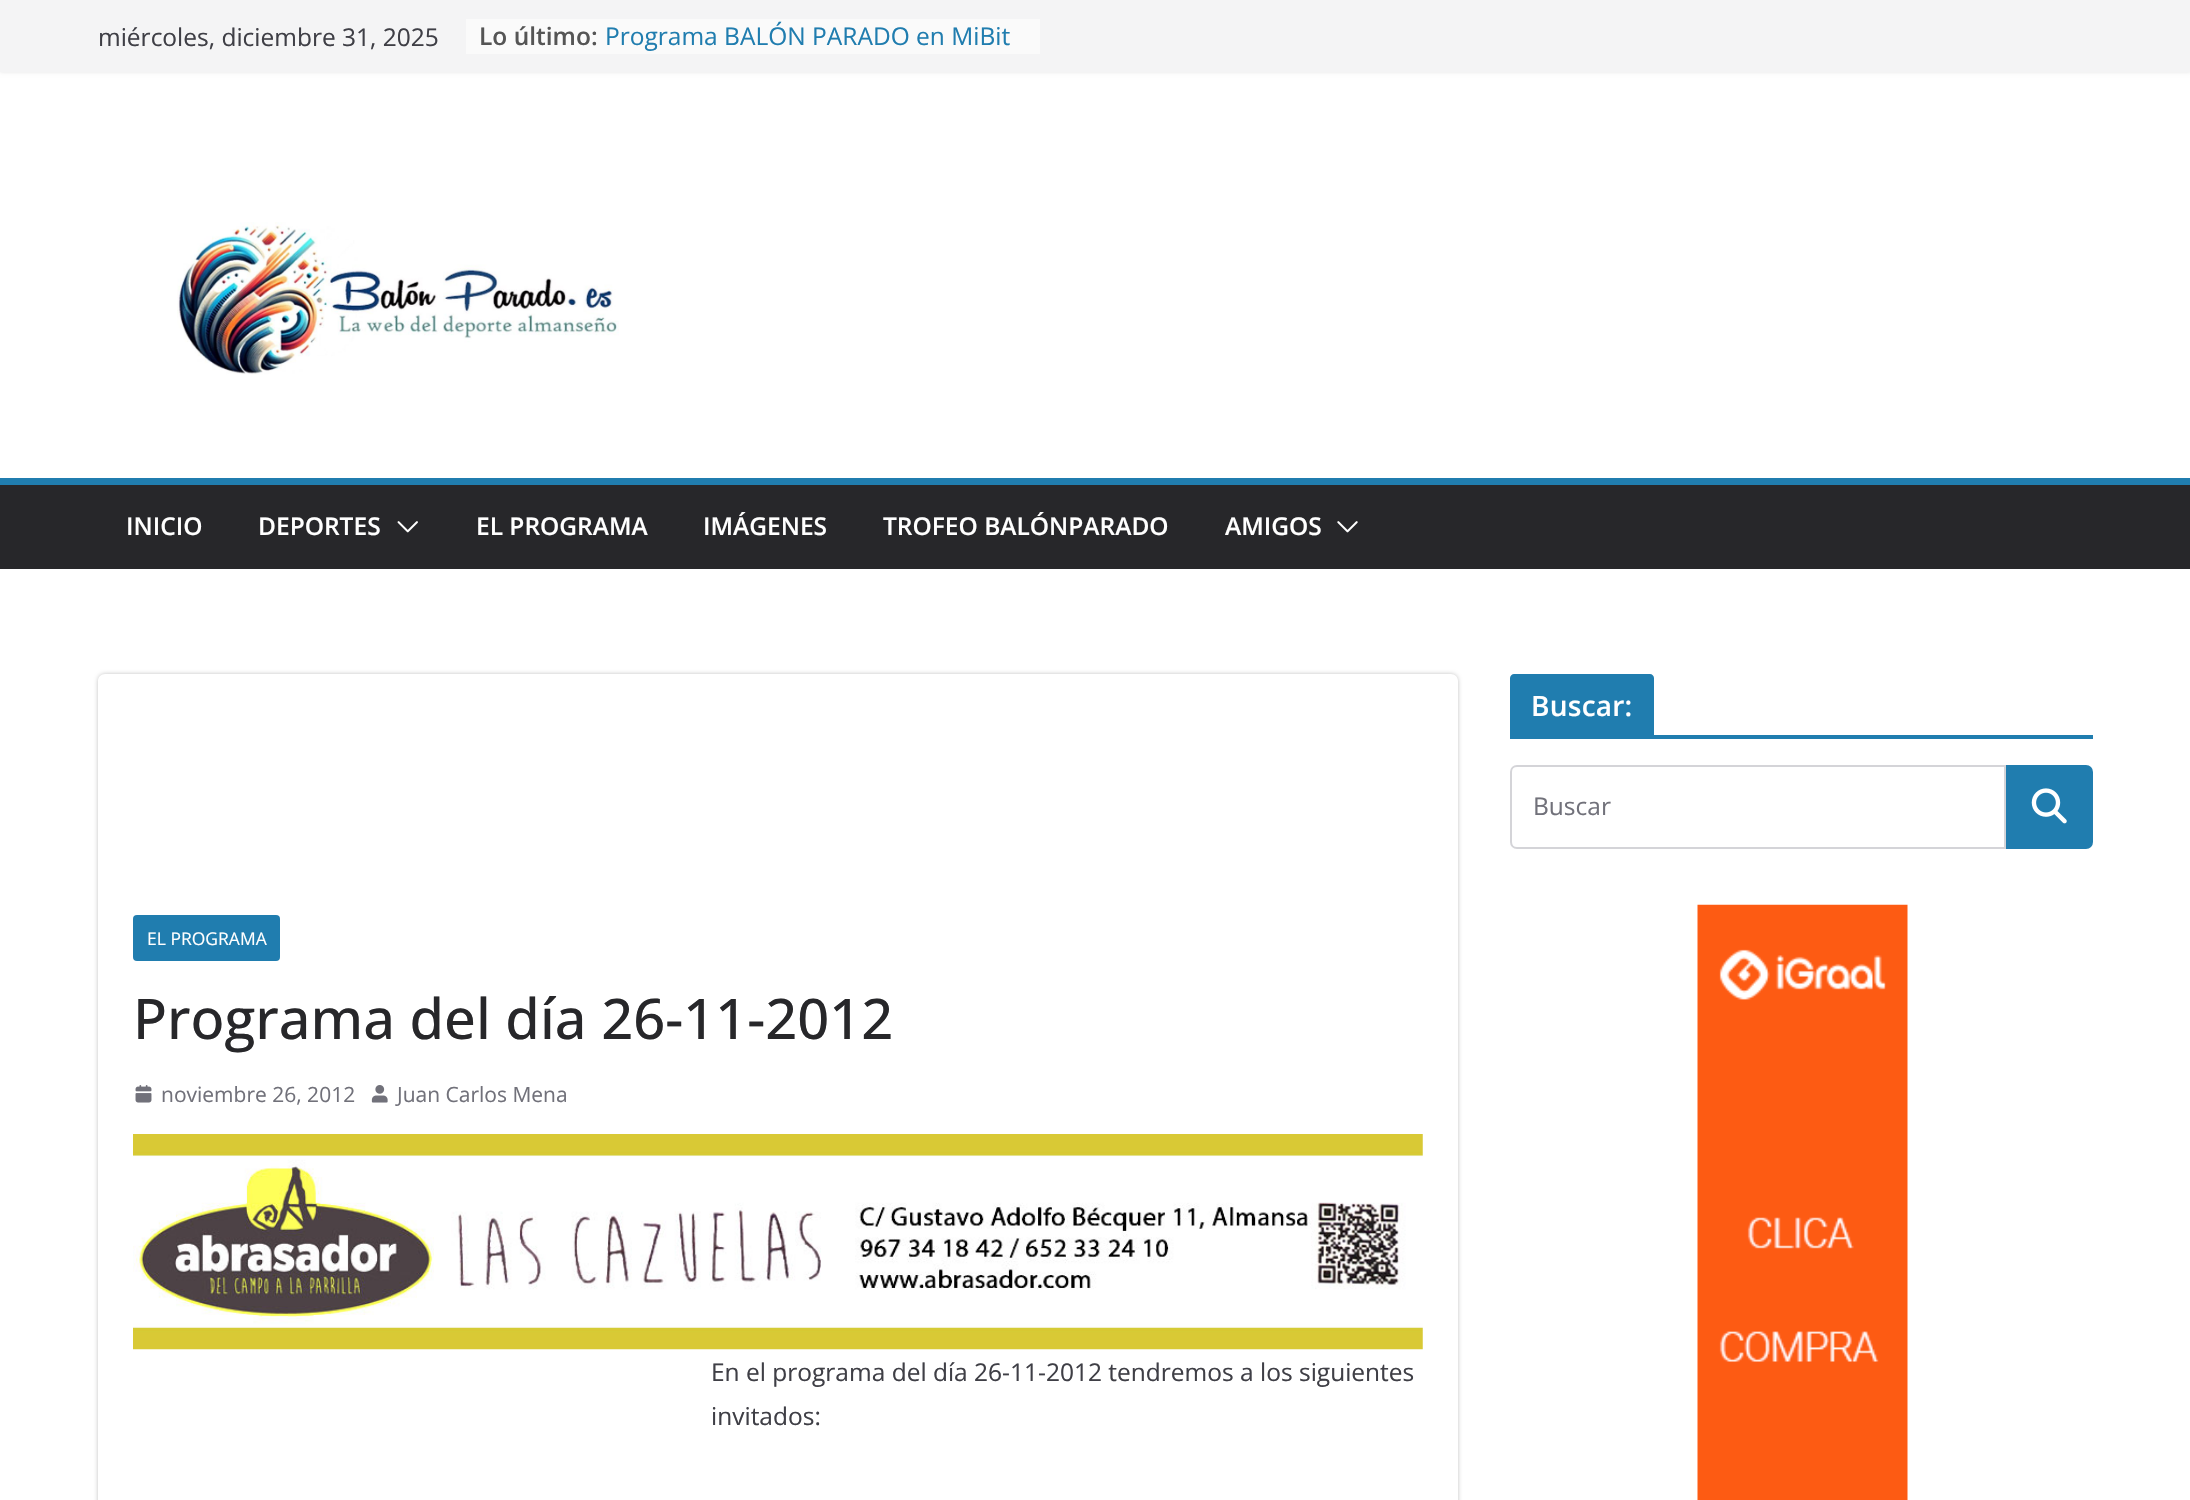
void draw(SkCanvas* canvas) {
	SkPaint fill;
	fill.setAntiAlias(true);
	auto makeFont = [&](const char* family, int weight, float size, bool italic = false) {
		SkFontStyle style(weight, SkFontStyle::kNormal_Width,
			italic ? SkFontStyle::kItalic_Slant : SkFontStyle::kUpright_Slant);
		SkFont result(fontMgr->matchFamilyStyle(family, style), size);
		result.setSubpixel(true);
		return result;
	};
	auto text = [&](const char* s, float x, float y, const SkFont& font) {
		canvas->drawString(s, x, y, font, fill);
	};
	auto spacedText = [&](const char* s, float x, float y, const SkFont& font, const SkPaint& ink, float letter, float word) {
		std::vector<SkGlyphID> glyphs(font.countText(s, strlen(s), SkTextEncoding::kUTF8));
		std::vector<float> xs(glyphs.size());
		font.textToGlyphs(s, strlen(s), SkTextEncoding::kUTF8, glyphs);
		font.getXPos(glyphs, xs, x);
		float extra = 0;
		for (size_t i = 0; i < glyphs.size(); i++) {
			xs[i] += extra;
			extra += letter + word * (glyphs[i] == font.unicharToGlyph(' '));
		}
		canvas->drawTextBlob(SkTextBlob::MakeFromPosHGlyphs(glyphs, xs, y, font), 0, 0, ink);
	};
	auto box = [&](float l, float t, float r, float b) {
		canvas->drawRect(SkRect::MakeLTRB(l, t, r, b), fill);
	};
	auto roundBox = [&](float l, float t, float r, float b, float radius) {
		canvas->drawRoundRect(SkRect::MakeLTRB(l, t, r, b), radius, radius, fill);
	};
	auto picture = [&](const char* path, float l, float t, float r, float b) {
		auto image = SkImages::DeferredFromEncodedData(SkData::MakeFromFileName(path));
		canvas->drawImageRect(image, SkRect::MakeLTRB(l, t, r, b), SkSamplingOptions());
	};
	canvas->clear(0xFFFFFFFF);
	fill.setColor(0x1A000000);
	fill.setMaskFilter(SkMaskFilter::MakeBlur(kNormal_SkBlurStyle, 2));
	canvas->drawRect(SkRect::MakeLTRB(0, 0, 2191, 72), fill);
	fill.setMaskFilter(nullptr);
	fill.setColor(0xFFF4F4F5);
	box(0, 0, 2190, 72);
	fill.setColor(0xFFFAFAFA);
	box(466, 19, 1040, 54);
	picture("image0.png", 177, 222, 619, 375);
	fill.setColor(0xFF27272A);
	box(0, 485, 2190, 569);
	fill.setColor(0xFF207DAF);
	box(0, 478, 2190, 485);
	picture("image1.png", 397, 521, 418, 533);
	picture("image2.png", 1337, 521, 1358, 533);
	box(1510, 735, 2093, 739);
	canvas->drawPath(SkPathBuilder().moveTo(1514, 674).lineTo(1650, 674).cubicTo(1652, 674, 1654, 676, 1654, 678).lineTo(1654, 735).lineTo(1510, 735).lineTo(1510, 678).cubicTo(1510, 676, 1512, 674, 1514, 674).close().detach(), fill);
	fill.setStyle(SkPaint::kStroke_Style);
	fill.setStrokeWidth(2);
	fill.setColor(0xFFD4D4D8);
	canvas->drawPath(SkPathBuilder().moveTo(1517, 766).lineTo(2005, 766).lineTo(2005, 848).lineTo(1517, 848).cubicTo(1513.5f, 848, 1511, 845.5f, 1511, 842).lineTo(1511, 772).cubicTo(1511, 768.5f, 1513.5f, 766, 1517, 766).close().detach(), fill);
	fill.setStyle(SkPaint::kFill_Style);
	fill.setColor(0xFF207DAF);
	canvas->drawPath(SkPathBuilder().moveTo(2007, 766).lineTo(2086, 766).cubicTo(2089.5f, 766, 2092, 768.5f, 2092, 772).lineTo(2092, 842).cubicTo(2092, 845.5f, 2089.5f, 848, 2086, 848).lineTo(2007, 848).close().detach(), fill);
	fill.setStyle(SkPaint::kStroke_Style);
	canvas->drawPath(SkPathBuilder().moveTo(2007, 766).lineTo(2086, 766).cubicTo(2089.5f, 766, 2092, 768.5f, 2092, 772).lineTo(2092, 842).cubicTo(2092, 845.5f, 2089.5f, 848, 2086, 848).lineTo(2007, 848).close().detach(), fill);
	picture("image3.png", 2031, 788, 2067, 824);
	picture("image4.png", 1697, 904, 1908, 1500);
	canvas->save();
	canvas->clipPath(SkPathBuilder(SkPathFillType::kEvenOdd).moveTo(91, 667).lineTo(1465, 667).lineTo(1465, 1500).lineTo(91, 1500).close().moveTo(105, 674).lineTo(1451, 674).cubicTo(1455, 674, 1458, 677, 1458, 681).lineTo(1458, 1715).cubicTo(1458, 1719, 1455, 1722, 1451, 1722).lineTo(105, 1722).cubicTo(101, 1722, 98, 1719, 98, 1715).lineTo(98, 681).cubicTo(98, 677, 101, 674, 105, 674).close().detach(), true);
	fill.setStyle(SkPaint::kFill_Style);
	fill.setColor(0x3D000000);
	fill.setMaskFilter(SkMaskFilter::MakeBlur(kNormal_SkBlurStyle, 2));
	canvas->drawRoundRect(SkRect::MakeLTRB(98, 674, 1458, 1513), 7, 7, fill);
	fill.setMaskFilter(nullptr);
	canvas->restore();
	fill.setColor(0xFF207DAF);
	roundBox(133, 915, 280, 961, 4);
	picture("image5.png", 135, 1085, 152, 1103);
	picture("image6.png", 371, 1085, 388, 1103);
	picture("image7.png", 133, 1134, 1423, 1350);
	auto font1 = makeFont("Open Sans", 400, 24.5f);
	fill.setColor(0xFF3F3F46);
	text("miércoles, diciembre 31, 2025", 98, 46, font1);
	auto font2 = makeFont("Open Sans", 600, 24.5f);
	fill.setColor(0xFF555555);
	text("Lo último:", 479, 45, font2);
	fill.setColor(0xFF207DAF);
	text("Programa BALÓN PARADO en MiBit", 605, 45, font1);
	fill.setColor(0xFFFFFFFF);
	text("INICIO", 126, 535, font2);
	text("DEPORTES", 258, 535, font2);
	text("EL PROGRAMA", 476, 535, font2);
	text("IMÁGENES", 703, 535, font2);
	text("TROFEO BALÓNPARADO", 883, 535, font2);
	text("AMIGOS", 1225, 535, font2);
	auto font3 = makeFont("Open Sans", 600, 28);
	spacedText("Buscar:", 1531, 716, font3, fill, 0.25f, 0);
	fill.setColor(0xFF71717A);
	text("Buscar", 1533, 815, font1);
	auto font4 = makeFont("Open Sans", 400, 17.5f);
	fill.setColor(0xFFFFFFFF);
	text("EL PROGRAMA", 147, 945, font4);
	auto font5 = makeFont("Open Sans", 500, 56);
	fill.setColor(0xFF27272A);
	text("Programa del día 26-11-2012", 133, 1039, font5);
	auto font6 = makeFont("Open Sans", 400, 21);
	fill.setColor(0xFF71717A);
	text("noviembre 26, 2012", 161, 1102, font6);
	text("Juan Carlos Mena", 397, 1102, font6);
	fill.setColor(0xFF3F3F46);
	text("En el programa del día 26-11-2012 tendremos a los siguientes", 711, 1381, font1);
	text("invitados:", 711, 1425, font1);
}
